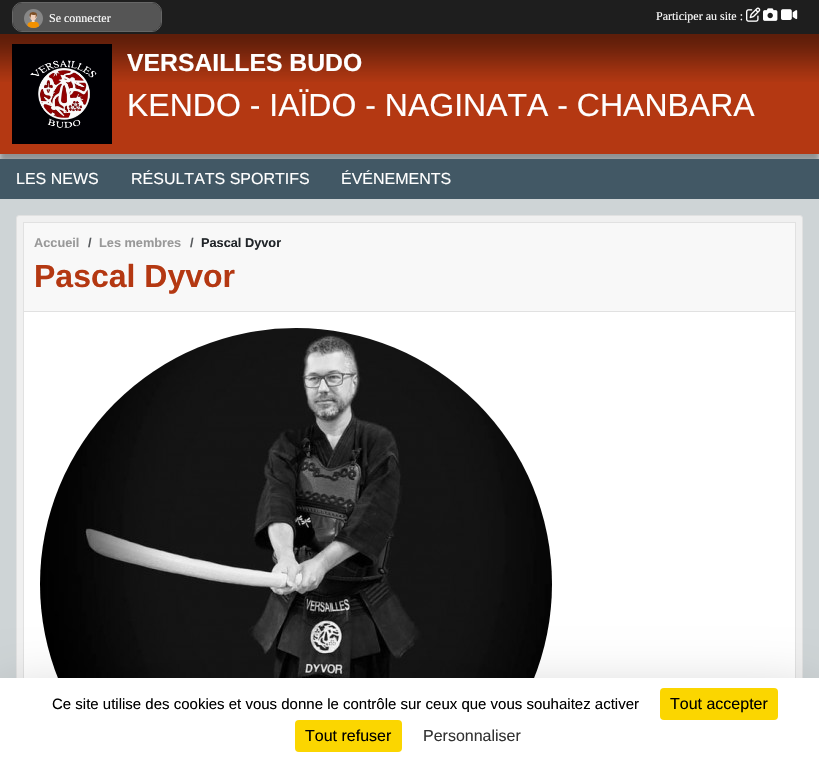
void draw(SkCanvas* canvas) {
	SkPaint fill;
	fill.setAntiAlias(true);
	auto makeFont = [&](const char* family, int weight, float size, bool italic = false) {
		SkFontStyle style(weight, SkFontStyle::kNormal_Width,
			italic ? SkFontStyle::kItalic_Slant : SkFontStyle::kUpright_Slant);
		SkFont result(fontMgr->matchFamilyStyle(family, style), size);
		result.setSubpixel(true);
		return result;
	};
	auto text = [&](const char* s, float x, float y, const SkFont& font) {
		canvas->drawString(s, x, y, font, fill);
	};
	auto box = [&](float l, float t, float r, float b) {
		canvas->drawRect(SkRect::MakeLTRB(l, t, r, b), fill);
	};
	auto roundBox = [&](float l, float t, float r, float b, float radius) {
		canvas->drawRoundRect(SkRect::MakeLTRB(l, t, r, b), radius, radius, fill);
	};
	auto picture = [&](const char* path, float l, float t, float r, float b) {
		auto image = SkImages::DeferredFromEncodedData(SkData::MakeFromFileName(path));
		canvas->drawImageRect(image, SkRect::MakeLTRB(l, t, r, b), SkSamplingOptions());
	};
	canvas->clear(0xFFCED4D6);
	fill.setColor(0x80505050);
	fill.setMaskFilter(SkMaskFilter::MakeBlur(kNormal_SkBlurStyle, 2.5f));
	canvas->drawRect(SkRect::MakeLTRB(0, 41, 819, 161), fill);
	fill.setMaskFilter(nullptr);
	fill.setColor(0xFF1E1E1E);
	box(0, 0, 819, 34);
	fill.setStyle(SkPaint::kStroke_Style);
	fill.setStrokeWidth(1);
	fill.setColor(0xFF666666);
	canvas->drawRoundRect(SkRect::MakeLTRB(12.5f, 2.5f, 161.5f, 31.5f), 9.5f, 9.5f, fill);
	fill.setStyle(SkPaint::kFill_Style);
	fill.setColor(0xFF555555);
	roundBox(13, 3, 161, 31, 9);
	picture("image0.png", 24, 9, 43, 28);
	picture("image1.png", 746, 7, 761, 22);
	picture("image2.png", 763, 8, 778, 21);
	picture("image3.png", 781, 9, 798, 20);
	fill.setColor(0xFFB43812);
	box(0, 34, 819, 154);
	picture("image4.png", 0, 34, 819, 82);
	picture("image5.png", 12, 44, 112, 144);
	fill.setColor(0xFF425865);
	box(0, 159, 819, 199);
	fill.setColor(0xFFF0F0F0);
	canvas->drawRoundRect(SkRect::MakeLTRB(16.5f, 215.5f, 802.5f, 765.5f), 2.5f, 2.5f, fill);
	fill.setStyle(SkPaint::kStroke_Style);
	fill.setColor(0xFFE1E1E1);
	canvas->drawRoundRect(SkRect::MakeLTRB(16.5f, 215.5f, 802.5f, 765.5f), 2.5f, 2.5f, fill);
	fill.setStyle(SkPaint::kFill_Style);
	fill.setColor(0xFFFFFFFF);
	box(24, 312, 795, 678);
	fill.setStyle(SkPaint::kStroke_Style);
	fill.setColor(0xFFE1E1E1);
	canvas->drawRect(SkRect::MakeLTRB(23.5f, 222.5f, 795.5f, 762.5f), fill);
	fill.setStyle(SkPaint::kFill_Style);
	fill.setColor(0xFFF8F8F8);
	box(24, 223, 795, 311);
	fill.setColor(0xFFE1E1E1);
	box(24, 311, 795, 312);
	picture("image6.png", 40, 328, 552, 678);
	fill.setColor(0x40000000);
	fill.setMaskFilter(SkMaskFilter::MakeBlur(kNormal_SkBlurStyle, 30));
	canvas->drawRect(SkRect::MakeLTRB(0, 698, 819, 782), fill);
	fill.setMaskFilter(nullptr);
	fill.setColor(0xFFFFFFFF);
	box(0, 678, 819, 762);
	fill.setColor(0xFFFBD600);
	roundBox(660, 688, 778, 720, 4);
	roundBox(295, 720, 402, 752, 4);
	auto font1 = makeFont("Liberation Serif", 400, 12);
	fill.setColor(0xFFFFFFFF);
	text("Se connecter", 49, 22, font1);
	text("Participer au site :", 656, 20, font1);
	auto font2 = makeFont("Liberation Sans", 700, 24.75f);
	text("VERSAILLES BUDO", 127, 71, font2);
	auto font3 = makeFont("Liberation Sans", 400, 32);
	text("KENDO - IAÏDO - NAGINATA - CHANBARA", 127, 116, font3);
	auto font4 = makeFont("Liberation Sans", 400, 16);
	text("LES NEWS", 16, 184, font4);
	text("RÉSULTATS SPORTIFS", 131, 184, font4);
	text("ÉVÉNEMENTS", 341, 184, font4);
	auto font5 = makeFont("Liberation Sans", 700, 12.75f);
	fill.setColor(0xFF999999);
	text("Accueil", 34, 247, font5);
	fill.setColor(0xFF575A5D);
	text("/", 88, 247, font5);
	fill.setColor(0xFF999999);
	text("Les membres", 99, 247, font5);
	fill.setColor(0xFF575A5D);
	text("/", 190, 247, font5);
	fill.setColor(0xFF212529);
	text("Pascal Dyvor", 201, 247, font5);
	auto font6 = makeFont("Liberation Sans", 700, 32);
	fill.setColor(0xFFB43812);
	text("Pascal Dyvor", 34, 287, font6);
	auto font7 = makeFont("Liberation Sans", 400, 15);
	fill.setColor(0xFF000000);
	text("Ce site utilise des cookies et vous donne le contrôle sur ceux que vous souhaitez activer", 52, 709, font7);
	text("Tout accepter", 670, 709, font4);
	text("Tout refuser", 305, 741, font4);
	fill.setColor(0xFF333333);
	text("Personnaliser", 423, 741, font4);
}
